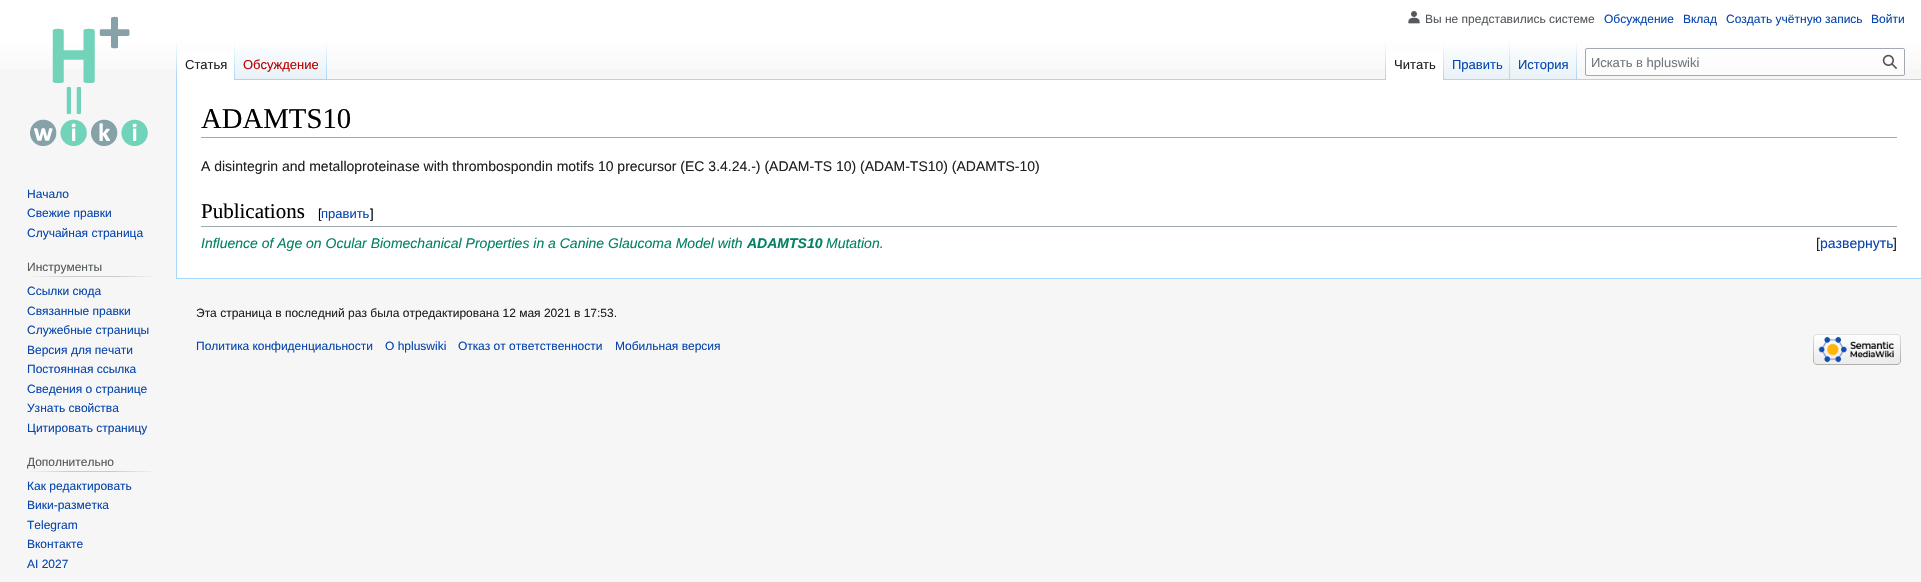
void draw(SkCanvas* canvas) {
	SkPaint fill;
	fill.setAntiAlias(true);
	auto makeFont = [&](const char* family, int weight, float size, bool italic = false) {
		SkFontStyle style(weight, SkFontStyle::kNormal_Width,
			italic ? SkFontStyle::kItalic_Slant : SkFontStyle::kUpright_Slant);
		SkFont result(fontMgr->matchFamilyStyle(family, style), size);
		result.setSubpixel(true);
		return result;
	};
	auto text = [&](const char* s, float x, float y, const SkFont& font) {
		canvas->drawString(s, x, y, font, fill);
	};
	auto box = [&](float l, float t, float r, float b) {
		canvas->drawRect(SkRect::MakeLTRB(l, t, r, b), fill);
	};
	auto picture = [&](const char* path, float l, float t, float r, float b) {
		auto image = SkImages::DeferredFromEncodedData(SkData::MakeFromFileName(path));
		canvas->drawImageRect(image, SkRect::MakeLTRB(l, t, r, b), SkSamplingOptions());
	};
	canvas->clear(0xFFF6F6F6);
	{
		const SkColor colors[] = {0xFFFFFFFF, 0xFFF6F6F6};
		const float stops[] = {0.5f, 1};
		const SkPoint ends[] = {{961, 0}, {961, 80}};
		fill.setShader(SkGradientShader::MakeLinear(ends, colors, stops, 2, SkTileMode::kClamp));
		fill.setAlpha(255);
	}
	box(0, 0, 1921, 69);
	picture("image0.png", 1408, 11, 1420, 24);
	fill.setShader(nullptr);
	fill.setColor(0xFFA7D7F9);
	box(176, 278, 1921, 279);
	box(176, 79, 177, 279);
	{
		const SkColor colors[] = {0x00A7D7F9, 0xFFA7D7F9};
		const float stops[] = {0, 1};
		const SkPoint ends[] = {{177, 40}, {177, 80}};
		fill.setShader(SkGradientShader::MakeLinear(ends, colors, stops, 2, SkTileMode::kClamp));
		fill.setAlpha(255);
	}
	box(176, 40, 177, 80);
	fill.setShader(nullptr);
	fill.setColor(0xFFFFFFFF);
	box(177, 51, 234, 80);
	{
		const SkColor colors[] = {0xFFFFFFFF, 0xFFA7D7F9};
		const float stops[] = {0, 1};
		const SkPoint ends[] = {{235, 40}, {235, 80}};
		fill.setShader(SkGradientShader::MakeLinear(ends, colors, stops, 2, SkTileMode::kClamp));
		fill.setAlpha(255);
	}
	box(234, 40, 235, 80);
	{
		const SkColor colors[] = {0xFF77C1F6, 0xFFE8F2F8, 0xFFFFFFFF};
		const float stops[] = {0, 0.03f, 1};
		const SkPoint ends[] = {{281, 80}, {281, 40}};
		fill.setShader(SkGradientShader::MakeLinear(ends, colors, stops, 3, SkTileMode::kClamp));
		fill.setAlpha(255);
	}
	box(235, 46, 327, 80);
	{
		const SkColor colors[] = {0x00A7D7F9, 0xFFA7D7F9};
		const float stops[] = {0, 1};
		const SkPoint ends[] = {{327, 40}, {327, 80}};
		fill.setShader(SkGradientShader::MakeLinear(ends, colors, stops, 2, SkTileMode::kClamp));
		fill.setAlpha(255);
	}
	box(326, 40, 327, 80);
	fill.setShader(nullptr);
	fill.setColor(0xFFA7D7F9);
	box(327, 79, 1921, 80);
	{
		const SkColor colors[] = {0x00A7D7F9, 0xFFA7D7F9};
		const float stops[] = {0, 1};
		const SkPoint ends[] = {{1386, 40}, {1386, 80}};
		fill.setShader(SkGradientShader::MakeLinear(ends, colors, stops, 2, SkTileMode::kClamp));
		fill.setAlpha(255);
	}
	box(1385, 40, 1386, 80);
	fill.setShader(nullptr);
	fill.setColor(0xFFFFFFFF);
	box(1386, 51, 1443, 80);
	{
		const SkColor colors[] = {0xFFFFFFFF, 0xFFA7D7F9};
		const float stops[] = {0, 1};
		const SkPoint ends[] = {{1444, 40}, {1444, 80}};
		fill.setShader(SkGradientShader::MakeLinear(ends, colors, stops, 2, SkTileMode::kClamp));
		fill.setAlpha(255);
	}
	box(1443, 40, 1444, 80);
	{
		const SkColor colors[] = {0xFF77C1F6, 0xFFE8F2F8, 0xFFFFFFFF};
		const float stops[] = {0, 0.03f, 1};
		const SkPoint ends[] = {{1477, 80}, {1477, 40}};
		fill.setShader(SkGradientShader::MakeLinear(ends, colors, stops, 3, SkTileMode::kClamp));
		fill.setAlpha(255);
	}
	box(1444, 46, 1510, 79);
	{
		const SkColor colors[] = {0x00A7D7F9, 0xFFA7D7F9};
		const float stops[] = {0, 1};
		const SkPoint ends[] = {{1510, 40}, {1510, 80}};
		fill.setShader(SkGradientShader::MakeLinear(ends, colors, stops, 2, SkTileMode::kClamp));
		fill.setAlpha(255);
	}
	box(1509, 40, 1510, 80);
	{
		const SkColor colors[] = {0xFF77C1F6, 0xFFE8F2F8, 0xFFFFFFFF};
		const float stops[] = {0, 0.03f, 1};
		const SkPoint ends[] = {{1544, 80}, {1544, 40}};
		fill.setShader(SkGradientShader::MakeLinear(ends, colors, stops, 3, SkTileMode::kClamp));
		fill.setAlpha(255);
	}
	box(1510, 46, 1577, 79);
	{
		const SkColor colors[] = {0x00A7D7F9, 0xFFA7D7F9};
		const float stops[] = {0, 1};
		const SkPoint ends[] = {{1577, 40}, {1577, 80}};
		fill.setShader(SkGradientShader::MakeLinear(ends, colors, stops, 2, SkTileMode::kClamp));
		fill.setAlpha(255);
	}
	box(1576, 40, 1577, 80);
	fill.setShader(nullptr);
	fill.setColor(0x80FFFFFF);
	canvas->drawRoundRect(SkRect::MakeLTRB(1585.5f, 48.5f, 1904.5f, 75.5f), 1.5f, 1.5f, fill);
	fill.setStyle(SkPaint::kStroke_Style);
	fill.setStrokeWidth(1);
	fill.setColor(0xFFA2A9B1);
	canvas->drawRoundRect(SkRect::MakeLTRB(1585.5f, 48.5f, 1904.5f, 75.5f), 1.5f, 1.5f, fill);
	picture("image1.png", 1882, 54, 1897, 69);
	picture("image2.png", 30, 16, 148, 146);
	fill.setStyle(SkPaint::kFill_Style);
	{
		const SkColor colors[] = {0xFFF6F6F6, 0xFFC8CCD1, 0xFFC8CCD1, 0xFFF6F6F6};
		const float stops[] = {0, 0.33f, 0.66f, 1};
		const SkPoint ends[] = {{27, 277}, {158, 277}};
		fill.setShader(SkGradientShader::MakeLinear(ends, colors, stops, 4, SkTileMode::kClamp));
		fill.setAlpha(255);
	}
	box(27, 276, 158, 277);
	{
		const SkColor colors[] = {0xFFF6F6F6, 0xFFC8CCD1, 0xFFC8CCD1, 0xFFF6F6F6};
		const float stops[] = {0, 0.33f, 0.66f, 1};
		const SkPoint ends[] = {{27, 472}, {158, 472}};
		fill.setShader(SkGradientShader::MakeLinear(ends, colors, stops, 4, SkTileMode::kClamp));
		fill.setAlpha(255);
	}
	box(27, 471, 158, 472);
	fill.setShader(nullptr);
	fill.setColor(0xFFFFFFFF);
	box(177, 80, 1921, 278);
	fill.setColor(0xFFA2A9B1);
	box(201, 137, 1897, 138);
	box(201, 226, 1897, 227);
	picture("image3.png", 1813, 334, 1901, 365);
	auto font1 = makeFont("Liberation Sans", 400, 12);
	fill.setColor(0xFF54595D);
	text("Вы не представились системе", 1425, 23, font1);
	fill.setColor(0xFF0645AD);
	text("Обсуждение", 1604, 23, font1);
	text("Вклад", 1683, 23, font1);
	text("Создать учётную запись", 1726, 23, font1);
	text("Войти", 1871, 23, font1);
	auto font2 = makeFont("Liberation Sans", 400, 13);
	fill.setColor(0xFF202122);
	text("Статья", 185, 69, font2);
	fill.setColor(0xFFBA0000);
	text("Обсуждение", 243, 69, font2);
	fill.setColor(0xFF202122);
	text("Читать", 1394, 69, font2);
	fill.setColor(0xFF0645AD);
	text("Править", 1452, 69, font2);
	text("История", 1518, 69, font2);
	fill.setColor(0xFF72777D);
	text("Искать в hpluswiki", 1591, 67, font2);
	fill.setColor(0xFF0645AD);
	text("Начало", 27, 198, font1);
	text("Свежие правки", 27, 217, font1);
	text("Случайная страница", 27, 237, font1);
	fill.setColor(0xFF54595D);
	text("Инструменты", 27, 271, font1);
	fill.setColor(0xFF0645AD);
	text("Ссылки сюда", 27, 295, font1);
	text("Связанные правки", 27, 315, font1);
	text("Служебные страницы", 27, 334, font1);
	text("Версия для печати", 27, 354, font1);
	text("Постоянная ссылка", 27, 373, font1);
	text("Сведения о странице", 27, 393, font1);
	text("Узнать свойства", 27, 412, font1);
	text("Цитировать страницу", 27, 432, font1);
	fill.setColor(0xFF54595D);
	text("Дополнительно", 27, 466, font1);
	fill.setColor(0xFF0645AD);
	text("Как редактировать", 27, 490, font1);
	text("Вики-разметка", 27, 509, font1);
	text("Telegram", 27, 529, font1);
	text("Вконтакте", 27, 548, font1);
	text("AI 2027", 27, 568, font1);
	auto font3 = makeFont("Liberation Serif", 400, 28.75f);
	fill.setColor(0xFF000000);
	text("ADAMTS10", 201, 128, font3);
	auto font4 = makeFont("Liberation Sans", 400, 14);
	fill.setColor(0xFF202122);
	text("A disintegrin and metalloproteinase with thrombospondin motifs 10 precursor (EC 3.4.24.-) (ADAM-TS 10) (ADAM-TS10) (ADAMTS-10)", 201, 171, font4);
	auto font5 = makeFont("Liberation Serif", 400, 21);
	fill.setColor(0xFF000000);
	text("Publications", 201, 218, font5);
	text("[", 318, 218, font2);
	fill.setColor(0xFF0645AD);
	text("править", 321, 218, font2);
	fill.setColor(0xFF000000);
	text("]", 370, 218, font2);
	auto font6 = makeFont("Liberation Sans", 400, 14, true);
	fill.setColor(0xFF018264);
	text("Influence of Age on Ocular Biomechanical Properties in a Canine Glaucoma Model with", 201, 248, font6);
	auto font7 = makeFont("Liberation Sans", 700, 14, true);
	text("ADAMTS10", 747, 248, font7);
	text("Mutation.", 826, 248, font6);
	fill.setColor(0xFF202122);
	text("[", 1816, 248, font4);
	fill.setColor(0xFF0645AD);
	text("развернуть", 1820, 248, font4);
	fill.setColor(0xFF202122);
	text("]", 1893, 248, font4);
	text("Эта страница в последний раз была отредактирована 12 мая 2021 в 17:53.", 196, 317, font1);
	fill.setColor(0xFF0645AD);
	text("Политика конфиденциальности", 196, 350, font1);
	text("О hpluswiki", 385, 350, font1);
	text("Отказ от ответственности", 458, 350, font1);
	text("Мобильная версия", 615, 350, font1);
}
